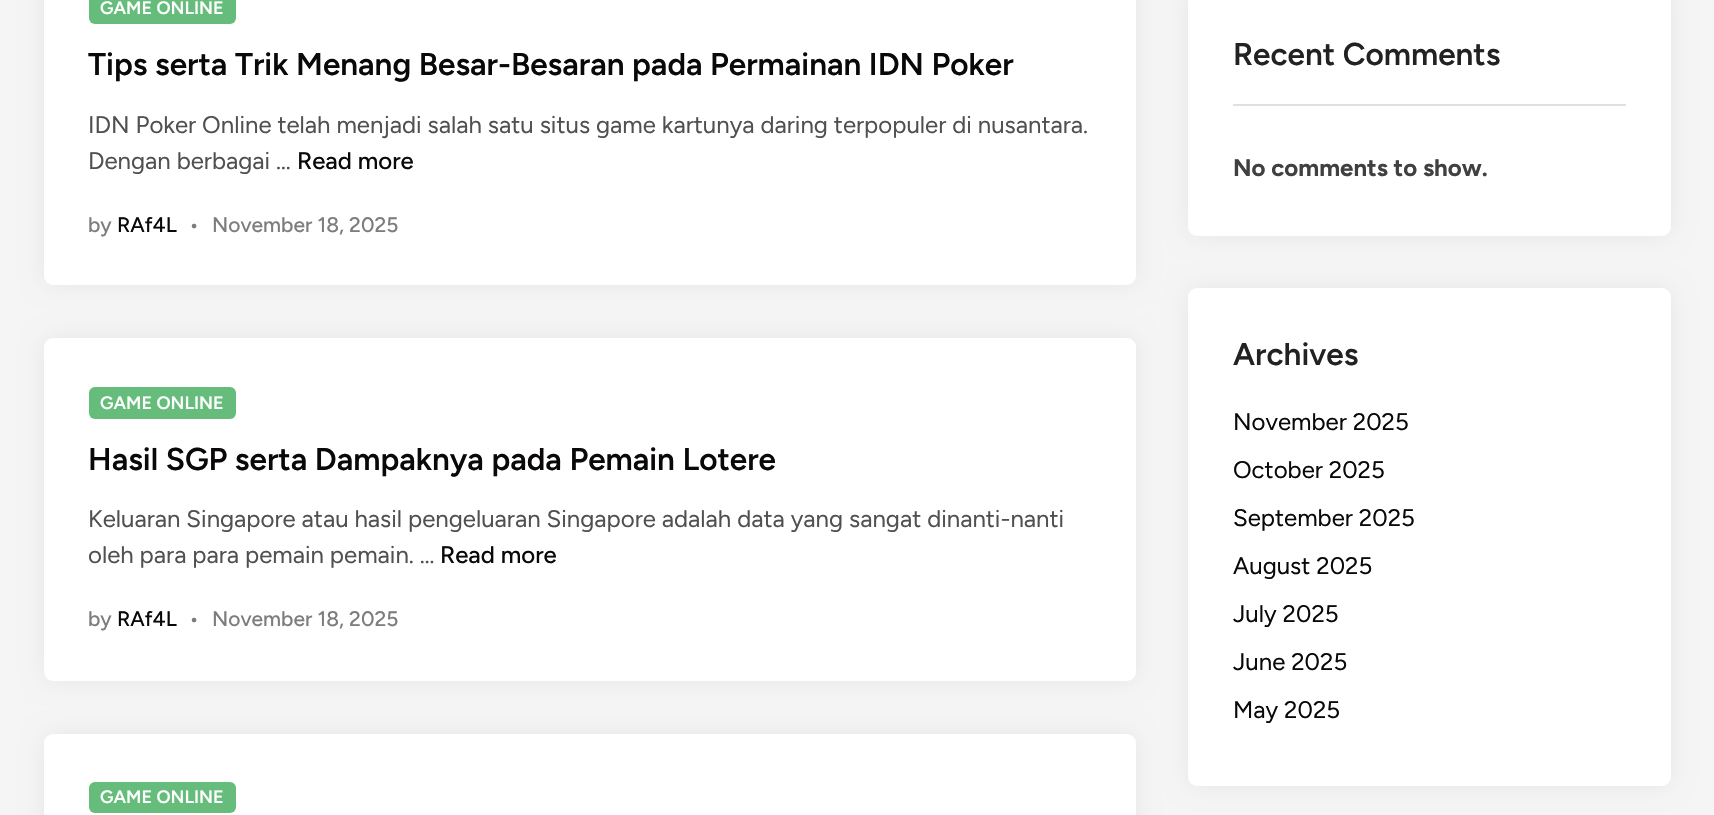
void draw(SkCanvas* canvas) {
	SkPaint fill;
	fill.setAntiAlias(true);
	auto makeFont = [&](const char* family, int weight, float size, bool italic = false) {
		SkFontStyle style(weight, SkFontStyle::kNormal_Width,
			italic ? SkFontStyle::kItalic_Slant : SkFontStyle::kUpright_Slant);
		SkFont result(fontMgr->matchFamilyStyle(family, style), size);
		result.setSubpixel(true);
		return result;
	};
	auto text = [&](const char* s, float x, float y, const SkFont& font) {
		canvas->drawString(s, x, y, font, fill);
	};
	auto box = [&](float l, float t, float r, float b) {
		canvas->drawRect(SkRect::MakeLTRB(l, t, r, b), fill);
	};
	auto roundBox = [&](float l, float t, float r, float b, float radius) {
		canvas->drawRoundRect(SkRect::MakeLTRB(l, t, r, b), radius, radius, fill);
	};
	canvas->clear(0xFFF5F5F5);
	fill.setColor(0x0F000000);
	fill.setMaskFilter(SkMaskFilter::MakeBlur(kNormal_SkBlurStyle, 11));
	canvas->drawRoundRect(SkRect::MakeLTRB(44, -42, 1136, 285), 9, 9, fill);
	fill.setMaskFilter(nullptr);
	fill.setColor(0xFFFFFFFF);
	roundBox(44, -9, 1136, 285, 9);
	fill.setColor(0xFF65BC7B);
	roundBox(89, -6, 236, 24, 6);
	fill.setColor(0x0F000000);
	fill.setMaskFilter(SkMaskFilter::MakeBlur(kNormal_SkBlurStyle, 11));
	canvas->drawRoundRect(SkRect::MakeLTRB(44, 338, 1136, 681), 9, 9, fill);
	fill.setMaskFilter(nullptr);
	fill.setColor(0xFFFFFFFF);
	roundBox(44, 338, 1136, 681, 9);
	fill.setColor(0xFF65BC7B);
	roundBox(89, 387, 236, 419, 6);
	fill.setColor(0x0F000000);
	fill.setMaskFilter(SkMaskFilter::MakeBlur(kNormal_SkBlurStyle, 11));
	canvas->drawRoundRect(SkRect::MakeLTRB(44, 734, 1136, 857), 9, 9, fill);
	fill.setMaskFilter(nullptr);
	fill.setColor(0xFFFFFFFF);
	roundBox(44, 734, 1136, 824, 9);
	fill.setColor(0xFF65BC7B);
	roundBox(89, 782, 236, 813, 6);
	fill.setColor(0x0F000000);
	fill.setMaskFilter(SkMaskFilter::MakeBlur(kNormal_SkBlurStyle, 11));
	canvas->drawRoundRect(SkRect::MakeLTRB(1188, -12, 1671, 236), 9, 9, fill);
	fill.setMaskFilter(nullptr);
	fill.setColor(0xFFFFFFFF);
	roundBox(1188, -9, 1671, 236, 9);
	fill.setColor(0xFFE0E0E0);
	box(1233, 104, 1626, 106);
	fill.setColor(0x0F000000);
	fill.setMaskFilter(SkMaskFilter::MakeBlur(kNormal_SkBlurStyle, 11));
	canvas->drawRoundRect(SkRect::MakeLTRB(1188, 288, 1671, 786), 9, 9, fill);
	fill.setMaskFilter(nullptr);
	fill.setColor(0xFFFFFFFF);
	roundBox(1188, 288, 1671, 786, 9);
	auto font1 = makeFont("Figtree", 600, 18);
	text("GAME ONLINE", 100, 14, font1);
	auto font2 = makeFont("Figtree", 600, 31.5f);
	fill.setColor(0xFF0A0808);
	text("Tips serta Trik Menang Besar-Besaran pada Permainan IDN Poker", 88, 75, font2);
	auto font3 = makeFont("Figtree", 400, 24);
	fill.setColor(0xFF505050);
	text("IDN Poker Online telah menjadi salah satu situs game kartunya daring terpopuler di nusantara.", 88, 133, font3);
	text("Dengan berbagai …", 88, 169, font3);
	auto font4 = makeFont("Figtree", 500, 24);
	fill.setColor(0xFF0A0808);
	text("Read more", 297, 169, font4);
	auto font5 = makeFont("Figtree", 500, 21);
	fill.setColor(0xFF7D7D7D);
	text("by", 88, 232, font5);
	fill.setColor(0xFF0A0808);
	text("RAf4L", 117, 232, font5);
	fill.setColor(0xFF7D7D7D);
	text("•", 189, 232, font5);
	text("November 18, 2025", 212, 232, font5);
	fill.setColor(0xFFFFFFFF);
	text("GAME ONLINE", 100, 409, font1);
	fill.setColor(0xFF0A0808);
	text("Hasil SGP serta Dampaknya pada Pemain Lotere", 88, 470, font2);
	fill.setColor(0xFF505050);
	text("Keluaran Singapore atau hasil pengeluaran Singapore adalah data yang sangat dinanti-nanti", 88, 527, font3);
	text("oleh para para pemain pemain. …", 88, 563, font3);
	fill.setColor(0xFF0A0808);
	text("Read more", 440, 563, font4);
	fill.setColor(0xFF7D7D7D);
	text("by", 88, 626, font5);
	fill.setColor(0xFF0A0808);
	text("RAf4L", 117, 626, font5);
	fill.setColor(0xFF7D7D7D);
	text("•", 189, 626, font5);
	text("November 18, 2025", 212, 626, font5);
	fill.setColor(0xFFFFFFFF);
	text("GAME ONLINE", 100, 803, font1);
	fill.setColor(0xFF222222);
	text("Recent Comments", 1233, 65, font2);
	auto font6 = makeFont("Figtree", 700, 24);
	fill.setColor(0xFF404040);
	text("No comments to show.", 1233, 176, font6);
	fill.setColor(0xFF222222);
	text("Archives", 1233, 365, font2);
	fill.setColor(0xFF0A0808);
	text("November 2025", 1233, 430, font3);
	text("October 2025", 1233, 478, font3);
	text("September 2025", 1233, 526, font3);
	text("August 2025", 1233, 574, font3);
	text("July 2025", 1233, 622, font3);
	text("June 2025", 1233, 670, font3);
	text("May 2025", 1233, 718, font3);
}
